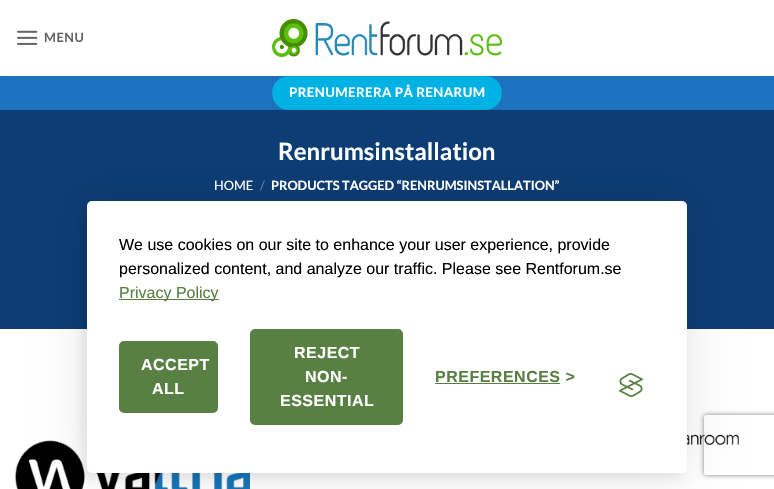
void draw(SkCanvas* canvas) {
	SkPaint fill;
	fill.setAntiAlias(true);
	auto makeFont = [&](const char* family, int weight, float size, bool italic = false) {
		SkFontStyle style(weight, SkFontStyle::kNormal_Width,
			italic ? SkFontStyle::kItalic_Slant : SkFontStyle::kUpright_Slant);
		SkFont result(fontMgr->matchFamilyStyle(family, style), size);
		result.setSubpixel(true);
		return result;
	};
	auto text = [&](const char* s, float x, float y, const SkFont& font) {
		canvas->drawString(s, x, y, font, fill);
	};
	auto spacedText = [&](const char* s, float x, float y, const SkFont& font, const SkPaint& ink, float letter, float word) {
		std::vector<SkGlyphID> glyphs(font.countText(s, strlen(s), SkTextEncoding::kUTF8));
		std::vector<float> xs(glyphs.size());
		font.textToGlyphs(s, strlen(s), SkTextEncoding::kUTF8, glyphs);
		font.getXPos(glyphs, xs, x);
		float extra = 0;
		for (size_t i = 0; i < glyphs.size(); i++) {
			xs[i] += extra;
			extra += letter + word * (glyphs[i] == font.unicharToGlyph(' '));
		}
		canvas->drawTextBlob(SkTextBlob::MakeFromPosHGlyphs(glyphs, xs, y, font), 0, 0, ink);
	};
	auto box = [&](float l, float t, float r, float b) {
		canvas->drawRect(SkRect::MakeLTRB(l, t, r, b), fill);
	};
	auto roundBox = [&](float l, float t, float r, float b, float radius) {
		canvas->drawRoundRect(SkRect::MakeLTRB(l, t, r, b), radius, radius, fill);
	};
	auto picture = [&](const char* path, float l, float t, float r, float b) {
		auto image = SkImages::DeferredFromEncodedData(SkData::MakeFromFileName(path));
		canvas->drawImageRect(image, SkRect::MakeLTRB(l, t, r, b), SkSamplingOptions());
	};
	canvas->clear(0xFFFFFFFF);
	picture("image0.png", 17, 30, 38, 45);
	picture("image1.png", 272, 19, 502, 57);
	fill.setColor(0xFF1E73BE);
	box(0, 76, 774, 110);
	fill.setColor(0xFF00B2E3);
	roundBox(272, 76, 502, 110, 17);
	fill.setStyle(SkPaint::kStroke_Style);
	fill.setStrokeWidth(1);
	fill.setColor(0x0D000000);
	canvas->drawRect(SkRect::MakeLTRB(272.5f, 76.5f, 501.5f, 109.5f), fill);
	fill.setStyle(SkPaint::kFill_Style);
	fill.setColor(0x1A777777);
	box(15, 76, 759, 77);
	fill.setColor(0xFF0D3D75);
	box(0, 110, 774, 329);
	picture("image2.png", 15, 439, 250, 489);
	picture("image3.png", 687, 413, 739, 461);
	fill.setColor(0x1A000000);
	fill.setMaskFilter(SkMaskFilter::MakeBlur(kNormal_SkBlurStyle, 25));
	canvas->drawRoundRect(SkRect::MakeLTRB(87, 201, 687, 473), 5, 5, fill);
	fill.setMaskFilter(nullptr);
	fill.setColor(0x12000000);
	fill.setMaskFilter(SkMaskFilter::MakeBlur(kNormal_SkBlurStyle, 5));
	canvas->drawRoundRect(SkRect::MakeLTRB(82, 206, 682, 478), 5, 5, fill);
	fill.setMaskFilter(nullptr);
	fill.setColor(0xFFFFFFFF);
	roundBox(87, 201, 687, 473, 5);
	fill.setColor(0xFF578042);
	box(119, 299, 219, 300);
	canvas->drawRoundRect(SkRect::MakeLTRB(120, 342, 217, 412), 4, 4, fill);
	fill.setStyle(SkPaint::kStroke_Style);
	fill.setStrokeWidth(2);
	canvas->drawRoundRect(SkRect::MakeLTRB(120, 342, 217, 412), 4, 4, fill);
	fill.setStyle(SkPaint::kFill_Style);
	canvas->drawRoundRect(SkRect::MakeLTRB(251, 330, 402, 424), 4, 4, fill);
	fill.setStyle(SkPaint::kStroke_Style);
	canvas->drawRoundRect(SkRect::MakeLTRB(251, 330, 402, 424), 4, 4, fill);
	fill.setStyle(SkPaint::kFill_Style);
	box(435, 383, 560, 384);
	picture("image4.png", 619, 373, 643, 397);
	canvas->save();
	canvas->clipPath(SkPathBuilder(SkPathFillType::kEvenOdd).moveTo(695, 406).lineTo(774, 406).lineTo(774, 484).lineTo(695, 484).close().moveTo(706, 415).lineTo(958, 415).cubicTo(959, 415, 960, 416, 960, 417).lineTo(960, 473).cubicTo(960, 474, 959, 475, 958, 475).lineTo(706, 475).cubicTo(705, 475, 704, 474, 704, 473).lineTo(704, 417).cubicTo(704, 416, 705, 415, 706, 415).close().detach(), true);
	fill.setColor(0xFF808080);
	fill.setMaskFilter(SkMaskFilter::MakeBlur(kNormal_SkBlurStyle, 2.5f));
	canvas->drawRoundRect(SkRect::MakeLTRB(704, 415, 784, 475), 2, 2, fill);
	fill.setMaskFilter(nullptr);
	canvas->restore();
	auto font1 = makeFont("Lato", 700, 12.8f);
	fill.setColor(0xFF656565);
	spacedText("MENU", 44, 42, font1, fill, 0.5f, 0);
	auto font2 = makeFont("Lato", 700, 13.25f);
	fill.setColor(0xFFFFFFFF);
	spacedText("PRENUMERERA PÅ RENARUM", 289, 97, font2, fill, 0.4f, 0);
	auto font3 = makeFont("Lato", 700, 24);
	text("Renrumsinstallation", 278, 160, font3);
	auto font4 = makeFont("Lato", 400, 12.8f);
	text("HOME", 214, 190, font4);
	fill.setColor(0xFF6281A5);
	text("/", 260, 190, font4);
	fill.setColor(0xFFFFFFFF);
	text("PRODUCTS TAGGED “RENRUMSINSTALLATION”", 271, 190, font1);
	auto font5 = makeFont("Liberation Sans", 400, 16);
	fill.setColor(0xFF000000);
	text("We use cookies on our site to enhance your user experience, provide", 119, 250, font5);
	text("personalized content, and analyze our traffic. Please see Rentforum.se", 119, 274, font5);
	fill.setColor(0xFF578042);
	text("Privacy Policy", 119, 298, font5);
	auto font6 = makeFont("Liberation Sans", 700, 16);
	fill.setColor(0xFFFFFFFF);
	spacedText("ACCEPT", 141, 370, font6, fill, 0.5f, 0);
	spacedText("ALL", 152, 394, font6, fill, 0.5f, 0);
	spacedText("REJECT", 294, 358, font6, fill, 0.5f, 0);
	spacedText("NON-", 305, 382, font6, fill, 0.5f, 0);
	spacedText("ESSENTIAL", 280, 406, font6, fill, 0.5f, 0);
	fill.setColor(0xFF578042);
	spacedText("PREFERENCES >", 435, 382, font6, fill, 0.5f, 0);
}
